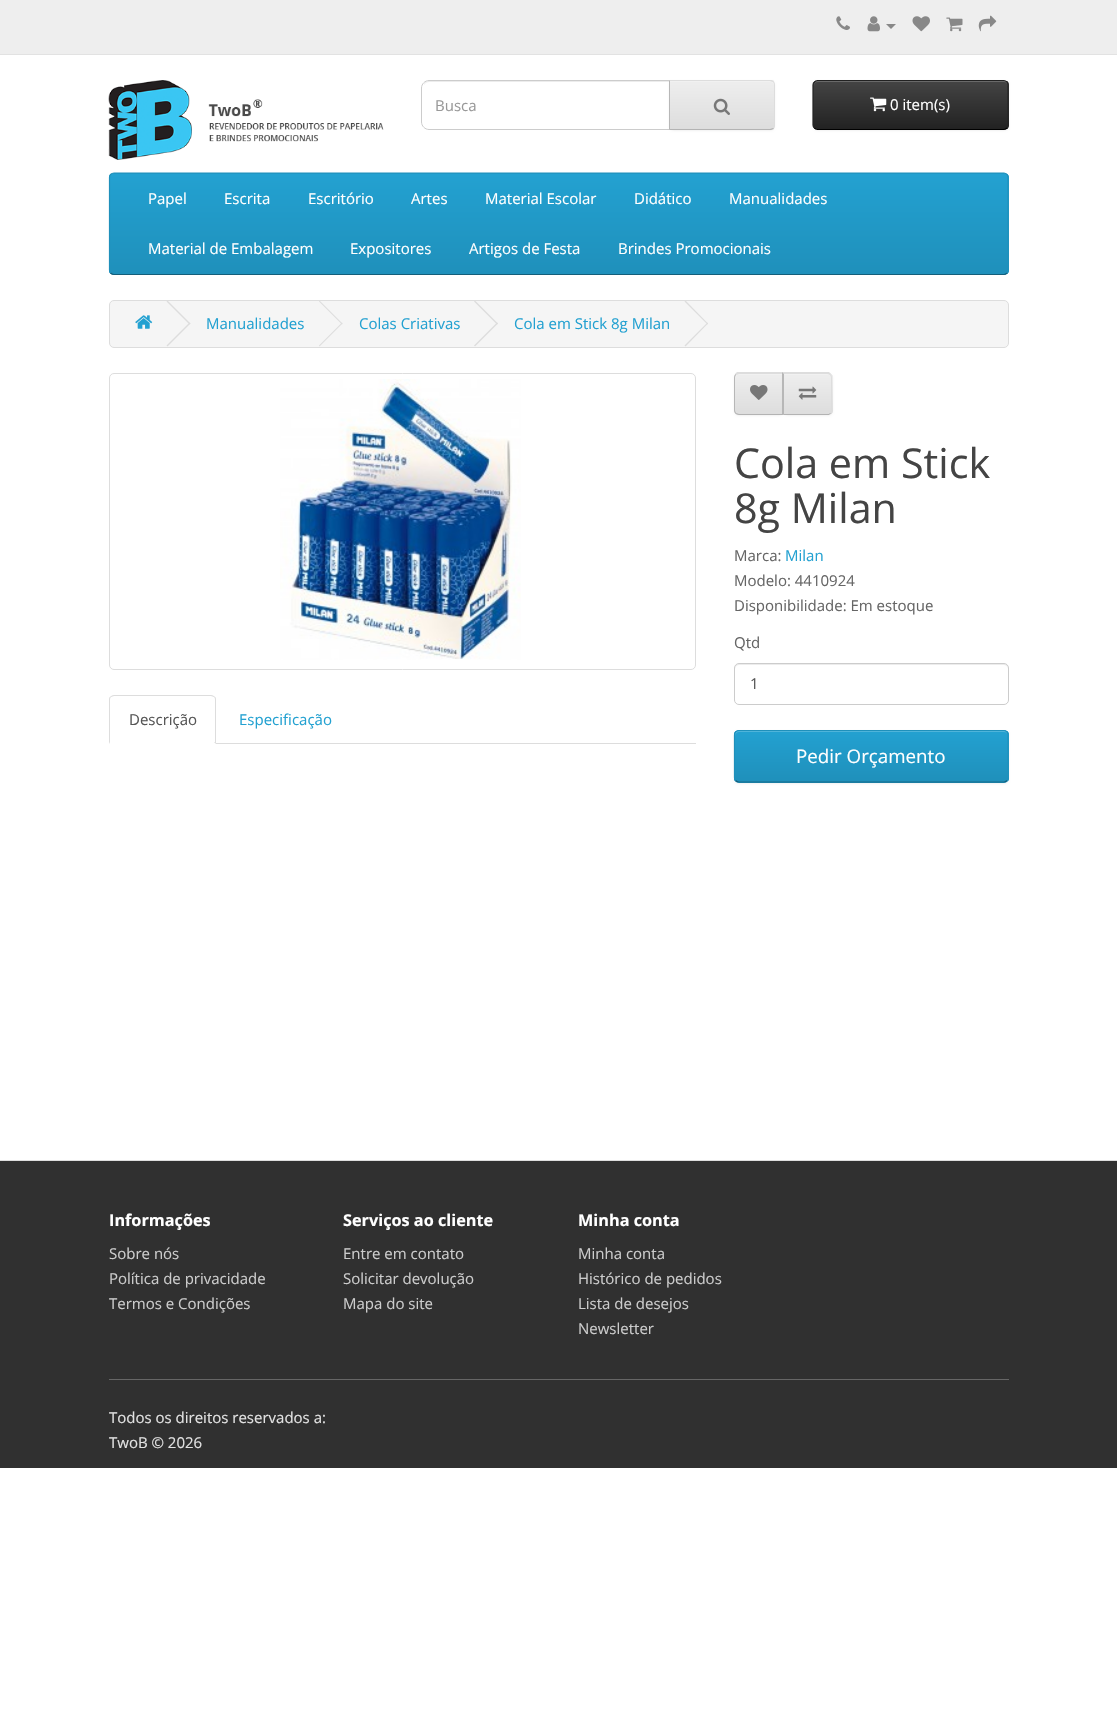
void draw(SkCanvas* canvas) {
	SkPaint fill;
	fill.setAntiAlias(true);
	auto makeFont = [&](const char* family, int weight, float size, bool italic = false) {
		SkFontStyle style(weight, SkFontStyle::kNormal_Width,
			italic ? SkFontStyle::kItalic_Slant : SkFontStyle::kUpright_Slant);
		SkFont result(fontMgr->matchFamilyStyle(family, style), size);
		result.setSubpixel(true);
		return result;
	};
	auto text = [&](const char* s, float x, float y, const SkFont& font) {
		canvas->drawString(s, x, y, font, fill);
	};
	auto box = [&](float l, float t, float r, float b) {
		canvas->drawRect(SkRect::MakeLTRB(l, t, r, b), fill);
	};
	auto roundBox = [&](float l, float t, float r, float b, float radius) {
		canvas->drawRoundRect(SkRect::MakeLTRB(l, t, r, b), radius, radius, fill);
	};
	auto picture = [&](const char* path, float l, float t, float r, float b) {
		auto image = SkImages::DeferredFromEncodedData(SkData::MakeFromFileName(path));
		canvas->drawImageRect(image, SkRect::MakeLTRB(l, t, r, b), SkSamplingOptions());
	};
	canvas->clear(0xFFFFFFFF);
	fill.setColor(0xFFEEEEEE);
	box(0, 0, 1117, 54);
	fill.setColor(0xFFE2E2E2);
	box(0, 54, 1117, 55);
	picture("image0.png", 836, 16, 850, 30);
	picture("image1.png", 867, 16, 880, 32);
	fill.setColor(0xFF888888);
	canvas->drawPath(SkPathBuilder().moveTo(886, 24).lineTo(896, 24).lineTo(891, 29).close().detach(), fill);
	picture("image2.png", 912, 16, 930, 32);
	picture("image3.png", 946, 17, 963, 32);
	picture("image4.png", 978, 15, 997, 32);
	picture("image5.png", 108, 80, 384, 160);
	fill.setColor(0xFFECECEC);
	canvas->drawPath(SkPathBuilder().moveTo(429, 82).lineTo(669, 82).lineTo(669, 81).lineTo(429, 81).cubicTo(427, 81, 424, 82, 424, 85).cubicTo(425, 83, 427, 82, 429, 82).close().detach(), fill);
	fill.setStyle(SkPaint::kStroke_Style);
	fill.setStrokeWidth(1);
	fill.setColor(0xFFCCCCCC);
	canvas->drawPath(SkPathBuilder().moveTo(429, 80.5f).lineTo(669.5f, 80.5f).lineTo(669.5f, 129.5f).lineTo(429, 129.5f).cubicTo(425, 129.5f, 421.5f, 126, 421.5f, 122).lineTo(421.5f, 88).cubicTo(421.5f, 84, 425, 80.5f, 429, 80.5f).close().detach(), fill);
	fill.setStyle(SkPaint::kFill_Style);
	fill.setColor(0x0D000000);
	fill.setMaskFilter(SkMaskFilter::MakeBlur(kNormal_SkBlurStyle, 1));
	canvas->drawRoundRect(SkRect::MakeLTRB(669, 81, 775, 131), 5, 5, fill);
	fill.setMaskFilter(nullptr);
	canvas->save();
	canvas->clipPath(SkPathBuilder().moveTo(669, 80).lineTo(770, 80).cubicTo(773, 80, 775, 82, 775, 85).lineTo(775, 125).cubicTo(775, 128, 773, 130, 770, 130).lineTo(669, 130).close().detach(), true);
	{
		const SkColor colors[] = {0xFFEEEEEE, 0xFFDDDDDD};
		const float stops[] = {0, 1};
		const SkPoint ends[] = {{722, 81}, {722, 129}};
		fill.setShader(SkGradientShader::MakeLinear(ends, colors, stops, 2, SkTileMode::kClamp));
		fill.setAlpha(255);
	}
	box(670, 81, 775, 129);
	canvas->restore();
	fill.setShader(nullptr);
	fill.setColor(0xFFF1F1F1);
	canvas->drawPath(SkPathBuilder().moveTo(670, 82).lineTo(770, 82).cubicTo(772, 82, 774, 84, 774, 86).lineTo(774, 85).cubicTo(774, 83, 772, 81, 770, 81).lineTo(670, 81).close().detach(), fill);
	fill.setColor(0xFFDDDDDD);
	canvas->drawPath(SkPathBuilder().moveTo(669, 80).lineTo(670, 81).lineTo(770, 81).lineTo(773, 82).lineTo(774, 81).cubicTo(773, 80, 772, 80, 770, 80).close().detach(), fill);
	canvas->drawPath(SkPathBuilder().moveTo(775, 125).lineTo(775, 85).cubicTo(775, 84, 774, 82, 774, 81).lineTo(773, 82).cubicTo(774, 83, 774, 84, 774, 85).lineTo(774, 125).cubicTo(774, 126, 774, 127, 773, 128).lineTo(774, 129).cubicTo(774, 128, 775, 126, 775, 125).close().detach(), fill);
	fill.setColor(0xFFB3B3B3);
	canvas->drawPath(SkPathBuilder().moveTo(669, 130).lineTo(771, 130).lineTo(774, 129).lineTo(773, 128).lineTo(770, 129).lineTo(670, 129).close().detach(), fill);
	fill.setColor(0xFFB7B7B7);
	canvas->drawPath(SkPathBuilder().moveTo(669, 80).lineTo(669, 130).lineTo(670, 129).lineTo(670, 81).close().detach(), fill);
	picture("image6.png", 713, 98, 730, 115);
	fill.setColor(0x0D000000);
	fill.setMaskFilter(SkMaskFilter::MakeBlur(kNormal_SkBlurStyle, 1));
	canvas->drawRoundRect(SkRect::MakeLTRB(813, 81, 1009, 131), 5, 5, fill);
	fill.setMaskFilter(nullptr);
	canvas->save();
	canvas->clipPath(SkPathBuilder().moveTo(818, 80).lineTo(1004, 80).cubicTo(1007, 80, 1009, 82, 1009, 85).lineTo(1009, 125).cubicTo(1009, 128, 1007, 130, 1004, 130).lineTo(818, 130).cubicTo(815, 130, 813, 128, 813, 125).lineTo(813, 85).cubicTo(813, 82, 815, 80, 818, 80).close().detach(), true);
	{
		const SkColor colors[] = {0xFF444444, 0xFF222222};
		const float stops[] = {0, 1};
		const SkPoint ends[] = {{911, 81}, {911, 129}};
		fill.setShader(SkGradientShader::MakeLinear(ends, colors, stops, 2, SkTileMode::kClamp));
		fill.setAlpha(255);
	}
	box(813, 81, 1009, 129);
	canvas->restore();
	fill.setShader(nullptr);
	fill.setColor(0xFF696969);
	canvas->drawPath(SkPathBuilder().moveTo(818, 82).lineTo(1004, 82).cubicTo(1006, 82, 1008, 84, 1008, 86).lineTo(1008, 85).cubicTo(1008, 83, 1006, 81, 1004, 81).lineTo(818, 81).cubicTo(816, 81, 814, 83, 814, 85).lineTo(814, 86).cubicTo(814, 84, 815, 82, 818, 82).close().detach(), fill);
	fill.setStyle(SkPaint::kStroke_Style);
	fill.setStrokeWidth(1.2f);
	fill.setColor(0xFF000000);
	canvas->drawPath(SkPathBuilder().moveTo(1007, 128).cubicTo(1006, 129, 1005, 129.5f, 1004, 129.5f).lineTo(817.5f, 129.5f).cubicTo(816.5f, 129.5f, 815, 129, 814.5f, 128).detach(), fill);
	fill.setColor(0xFF222222);
	canvas->drawPath(SkPathBuilder().moveTo(814.5f, 128).cubicTo(813.5f, 127.5f, 813, 126, 813, 125).lineTo(813, 85).cubicTo(813, 84, 813.5f, 82.5f, 814.5f, 82).cubicTo(815, 81, 816.5f, 80.5f, 817.5f, 80.5f).lineTo(1004, 80.5f).cubicTo(1005, 80.5f, 1006, 81, 1007, 82).cubicTo(1007.5f, 82.5f, 1008, 84, 1008, 85).lineTo(1008, 125).cubicTo(1008, 126, 1007.5f, 127.5f, 1007, 128).detach(), fill);
	picture("image7.png", 870, 97, 887, 112);
	fill.setStyle(SkPaint::kFill_Style);
	fill.setColor(0xFF229AC8);
	roundBox(109, 173, 1009, 275, 5);
	canvas->save();
	canvas->clipPath(SkPathBuilder().moveTo(114, 173).lineTo(1004, 173).cubicTo(1007, 173, 1009, 175, 1009, 178).lineTo(1009, 270).cubicTo(1009, 273, 1007, 275, 1004, 275).lineTo(114, 275).cubicTo(111, 275, 109, 273, 109, 270).lineTo(109, 178).cubicTo(109, 175, 111, 173, 114, 173).close().detach(), true);
	{
		const SkColor colors[] = {0xFF23A1D1, 0xFF1F90BB};
		const float stops[] = {0, 1};
		const SkPoint ends[] = {{559, 174}, {559, 274}};
		fill.setShader(SkGradientShader::MakeLinear(ends, colors, stops, 2, SkTileMode::kClamp));
		fill.setAlpha(255);
	}
	box(109, 174, 1009, 274);
	canvas->restore();
	fill.setStyle(SkPaint::kStroke_Style);
	fill.setShader(nullptr);
	fill.setColor(0xFF145E7A);
	canvas->drawPath(SkPathBuilder().moveTo(1007, 273).cubicTo(1006, 274, 1005, 274.5f, 1004, 274.5f).lineTo(114, 274.5f).cubicTo(112.5f, 274.5f, 111.5f, 274, 110.5f, 273).detach(), fill);
	fill.setColor(0xFF1F90BB);
	canvas->drawPath(SkPathBuilder().moveTo(110.5f, 273).cubicTo(110, 272.5f, 109.5f, 271, 109.5f, 270).lineTo(109.5f, 177.5f).cubicTo(109.5f, 176.5f, 110, 175, 110.5f, 174.5f).cubicTo(111.5f, 173.5f, 112.5f, 173, 114, 173).lineTo(1004, 173).cubicTo(1005, 173, 1006, 173.5f, 1007, 174.5f).cubicTo(1007.5f, 175, 1008, 176.5f, 1008, 177.5f).lineTo(1008, 270).cubicTo(1008, 271, 1007.5f, 272.5f, 1007, 273).detach(), fill);
	fill.setStyle(SkPaint::kFill_Style);
	fill.setColor(0xFFF5F5F5);
	canvas->drawRoundRect(SkRect::MakeLTRB(109.5f, 300.5f, 1008.5f, 347.5f), 4.5f, 4.5f, fill);
	fill.setStyle(SkPaint::kStroke_Style);
	fill.setStrokeWidth(1);
	fill.setColor(0xFFDDDDDD);
	canvas->drawRoundRect(SkRect::MakeLTRB(109.5f, 300.5f, 1008.5f, 347.5f), 4.5f, 4.5f, fill);
	picture("image8.png", 135, 315, 153, 329);
	fill.setStyle(SkPaint::kFill_Style);
	canvas->drawPath(SkPathBuilder().moveTo(166.5f, 301.5f).lineTo(167.5f, 300.5f).lineTo(190.5f, 323.5f).lineTo(189.5f, 324.5f).close().detach(), fill);
	canvas->drawPath(SkPathBuilder().moveTo(166.5f, 345.5f).lineTo(189.5f, 322.5f).lineTo(190.5f, 323.5f).lineTo(167.5f, 346.5f).close().detach(), fill);
	canvas->drawPath(SkPathBuilder().moveTo(319, 301.5f).lineTo(319.5f, 300.5f).lineTo(342.5f, 323.5f).lineTo(342, 324.5f).close().detach(), fill);
	canvas->drawPath(SkPathBuilder().moveTo(319, 345.5f).lineTo(342, 322.5f).lineTo(342.5f, 323.5f).lineTo(319.5f, 346.5f).close().detach(), fill);
	canvas->drawPath(SkPathBuilder().moveTo(474, 301.5f).lineTo(475, 300.5f).lineTo(498, 323.5f).lineTo(497, 324.5f).close().detach(), fill);
	canvas->drawPath(SkPathBuilder().moveTo(474, 345.5f).lineTo(497, 322.5f).lineTo(498, 323.5f).lineTo(475, 346.5f).close().detach(), fill);
	canvas->drawPath(SkPathBuilder().moveTo(684.5f, 301.5f).lineTo(685.5f, 300.5f).lineTo(708, 323.5f).lineTo(707.5f, 324.5f).close().detach(), fill);
	canvas->drawPath(SkPathBuilder().moveTo(684.5f, 345.5f).lineTo(707.5f, 322.5f).lineTo(708, 323.5f).lineTo(685.5f, 346.5f).close().detach(), fill);
	fill.setStyle(SkPaint::kStroke_Style);
	canvas->drawRoundRect(SkRect::MakeLTRB(109.5f, 373.5f, 695.5f, 669.5f), 4.5f, 4.5f, fill);
	picture("image9.png", 280, 379, 521, 660);
	fill.setStyle(SkPaint::kFill_Style);
	box(216, 743, 696, 744);
	canvas->drawPath(SkPathBuilder().moveTo(114, 695).cubicTo(112, 695, 111, 696, 110, 697).lineTo(111, 697).lineTo(114, 696).lineTo(211, 696).lineTo(214, 697).lineTo(215, 697).cubicTo(214, 696, 213, 695, 211, 695).close().detach(), fill);
	canvas->drawPath(SkPathBuilder().moveTo(215, 697).cubicTo(216, 697, 216, 699, 216, 700).lineTo(216, 744).lineTo(214, 742).lineTo(215, 742).lineTo(215, 700).cubicTo(215, 699, 215, 698, 214, 697).close().detach(), fill);
	canvas->drawPath(SkPathBuilder().moveTo(110, 697).cubicTo(109, 697, 109, 699, 109, 700).lineTo(109, 744).lineTo(110, 742).lineTo(110, 700).cubicTo(110, 699, 110, 698, 111, 697).close().detach(), fill);
	fill.setColor(0x0D000000);
	fill.setMaskFilter(SkMaskFilter::MakeBlur(kNormal_SkBlurStyle, 1));
	canvas->drawRoundRect(SkRect::MakeLTRB(734, 374, 784, 416), 5, 5, fill);
	fill.setMaskFilter(nullptr);
	canvas->save();
	canvas->clipPath(SkPathBuilder().moveTo(739, 373).lineTo(784, 373).lineTo(784, 415).lineTo(739, 415).cubicTo(736, 415, 734, 413, 734, 410).lineTo(734, 378).cubicTo(734, 375, 736, 373, 739, 373).close().detach(), true);
	{
		const SkColor colors[] = {0xFFEEEEEE, 0xFFDDDDDD};
		const float stops[] = {0, 1};
		const SkPoint ends[] = {{759, 374}, {759, 414}};
		fill.setShader(SkGradientShader::MakeLinear(ends, colors, stops, 2, SkTileMode::kClamp));
		fill.setAlpha(255);
	}
	box(734, 374, 782, 414);
	canvas->restore();
	fill.setShader(nullptr);
	fill.setColor(0x33FFFFFF);
	canvas->drawPath(SkPathBuilder().moveTo(739, 375).lineTo(782, 375).lineTo(782, 414).lineTo(783, 414).lineTo(783, 374).lineTo(739, 374).cubicTo(737, 374, 735, 376, 735, 378).lineTo(735, 379).cubicTo(735, 377, 737, 375, 739, 375).close().detach(), fill);
	fill.setColor(0xFFDDDDDD);
	canvas->drawPath(SkPathBuilder().moveTo(739, 374).lineTo(736, 375).lineTo(735, 374).lineTo(737, 372).lineTo(784, 372).lineTo(782, 374).close().detach(), fill);
	fill.setColor(0xFFB3B3B3);
	canvas->drawPath(SkPathBuilder().moveTo(784, 415).lineTo(782, 413).lineTo(782, 414).lineTo(739, 414).cubicTo(738, 414, 737, 413, 736, 413).lineTo(735, 413).cubicTo(736, 414, 737, 415, 739, 415).close().detach(), fill);
	fill.setColor(0xFFB7B7B7);
	canvas->drawPath(SkPathBuilder().moveTo(735.5f, 413.5f).cubicTo(734.5f, 412.5f, 734, 411.5f, 734, 410).lineTo(734, 378).cubicTo(734, 376.5f, 734.5f, 375, 735.5f, 374).lineTo(736, 375).cubicTo(735.5f, 375.5f, 735, 376.5f, 735, 378).lineTo(735, 410).cubicTo(735, 411, 735.5f, 412, 736, 412.5f).close().detach(), fill);
	picture("image10.png", 750, 385, 768, 400);
	fill.setColor(0x0D000000);
	fill.setMaskFilter(SkMaskFilter::MakeBlur(kNormal_SkBlurStyle, 1));
	canvas->drawRoundRect(SkRect::MakeLTRB(783, 374, 833, 416), 5, 5, fill);
	fill.setMaskFilter(nullptr);
	fill.setColor(0xFFE7E7E7);
	canvas->drawPath(SkPathBuilder().moveTo(783, 373).lineTo(828, 373).cubicTo(831, 373, 833, 375, 833, 378).lineTo(833, 410).cubicTo(833, 413, 831, 415, 828, 415).lineTo(783, 415).close().detach(), fill);
	canvas->save();
	canvas->clipPath(SkPathBuilder().moveTo(783, 373).lineTo(828, 373).cubicTo(831, 373, 833, 375, 833, 378).lineTo(833, 410).cubicTo(833, 413, 831, 415, 828, 415).lineTo(783, 415).close().detach(), true);
	{
		const SkColor colors[] = {0xFFEEEEEE, 0xFFDDDDDD};
		const float stops[] = {0, 1};
		const SkPoint ends[] = {{808, 374}, {808, 414}};
		fill.setShader(SkGradientShader::MakeLinear(ends, colors, stops, 2, SkTileMode::kClamp));
		fill.setAlpha(255);
	}
	box(784, 374, 833, 414);
	canvas->restore();
	fill.setShader(nullptr);
	fill.setColor(0xFFF1F1F1);
	canvas->drawPath(SkPathBuilder().moveTo(784, 375).lineTo(828, 375).cubicTo(830, 375, 831, 377, 831, 379).lineTo(831, 378).cubicTo(831, 376, 829, 374, 827, 374).lineTo(784, 374).close().detach(), fill);
	fill.setColor(0xFFDDDDDD);
	canvas->drawPath(SkPathBuilder().moveTo(784, 374).lineTo(782, 372).lineTo(829, 372).lineTo(831, 374).lineTo(830, 375).lineTo(828, 374).close().detach(), fill);
	canvas->drawPath(SkPathBuilder().moveTo(831, 374).cubicTo(831.5f, 375, 832, 376.5f, 832, 378).lineTo(832, 410).cubicTo(832, 411.5f, 831.5f, 412.5f, 831, 413.5f).lineTo(830, 413).cubicTo(831, 412, 831, 411, 831, 410).lineTo(831, 378).cubicTo(831, 376.5f, 830.5f, 375.5f, 830, 375).close().detach(), fill);
	fill.setColor(0xFFB3B3B3);
	canvas->drawPath(SkPathBuilder().moveTo(782, 415).lineTo(829, 415).lineTo(831, 413).lineTo(830, 413).lineTo(829, 414).lineTo(784, 414).close().detach(), fill);
	fill.setColor(0xFFB7B7B7);
	canvas->drawPath(SkPathBuilder().moveTo(784, 374).lineTo(782, 372).lineTo(782, 415).lineTo(784, 414).close().detach(), fill);
	picture("image11.png", 798, 386, 817, 400);
	fill.setColor(0xFFECECEC);
	canvas->drawPath(SkPathBuilder().moveTo(739, 665).lineTo(1004, 665).cubicTo(1006, 665, 1008, 667, 1008, 669).cubicTo(1008, 666, 1007, 664, 1004, 664).lineTo(739, 664).cubicTo(736, 664, 735, 666, 735, 669).cubicTo(735, 667, 737, 665, 739, 665).close().detach(), fill);
	fill.setStyle(SkPaint::kStroke_Style);
	fill.setColor(0xFFCCCCCC);
	canvas->drawRoundRect(SkRect::MakeLTRB(734.5f, 663.5f, 1008.5f, 704.5f), 4.5f, 4.5f, fill);
	fill.setStyle(SkPaint::kFill_Style);
	fill.setColor(0x0D000000);
	fill.setMaskFilter(SkMaskFilter::MakeBlur(kNormal_SkBlurStyle, 1));
	canvas->drawRoundRect(SkRect::MakeLTRB(734, 731, 1009, 784), 5, 5, fill);
	fill.setMaskFilter(nullptr);
	fill.setColor(0xFF229AC8);
	roundBox(734, 730, 1009, 783, 5);
	canvas->save();
	canvas->clipPath(SkPathBuilder().moveTo(739, 730).lineTo(1004, 730).cubicTo(1007, 730, 1009, 732, 1009, 735).lineTo(1009, 778).cubicTo(1009, 781, 1007, 783, 1004, 783).lineTo(739, 783).cubicTo(736, 783, 734, 781, 734, 778).lineTo(734, 735).cubicTo(734, 732, 736, 730, 739, 730).close().detach(), true);
	{
		const SkColor colors[] = {0xFF23A1D1, 0xFF1F90BB};
		const float stops[] = {0, 1};
		const SkPoint ends[] = {{871, 731}, {871, 781}};
		fill.setShader(SkGradientShader::MakeLinear(ends, colors, stops, 2, SkTileMode::kClamp));
		fill.setAlpha(255);
	}
	box(734, 731, 1009, 781);
	canvas->restore();
	fill.setShader(nullptr);
	fill.setColor(0xFF4FB4DA);
	canvas->drawPath(SkPathBuilder().moveTo(739, 732).lineTo(1004, 732).cubicTo(1006, 732, 1008, 734, 1008, 736).cubicTo(1008, 733, 1007, 731, 1004, 731).lineTo(739, 731).cubicTo(736, 731, 735, 733, 735, 736).cubicTo(735, 734, 737, 732, 739, 732).close().detach(), fill);
	fill.setStyle(SkPaint::kStroke_Style);
	fill.setStrokeWidth(1.2f);
	fill.setColor(0xFF145E7A);
	canvas->drawPath(SkPathBuilder().moveTo(1007, 780.5f).cubicTo(1006, 781.5f, 1005, 782, 1004, 782).lineTo(739, 782).cubicTo(737.5f, 782, 736.5f, 781.5f, 735.5f, 780.5f).detach(), fill);
	fill.setColor(0xFF1F90BB);
	canvas->drawPath(SkPathBuilder().moveTo(735.5f, 780.5f).cubicTo(735, 780, 734.5f, 778.5f, 734.5f, 777.5f).lineTo(734.5f, 735).cubicTo(734.5f, 734, 735, 732.5f, 735.5f, 732).cubicTo(736.5f, 731, 737.5f, 730.5f, 739, 730.5f).lineTo(1004, 730.5f).cubicTo(1005, 730.5f, 1006, 731, 1007, 732).cubicTo(1007.5f, 732.5f, 1008, 734, 1008, 735).lineTo(1008, 777.5f).cubicTo(1008, 778.5f, 1007.5f, 780, 1007, 780.5f).detach(), fill);
	fill.setStyle(SkPaint::kFill_Style);
	fill.setColor(0xFF303030);
	box(0, 1161, 1117, 1468);
	fill.setColor(0xFFDDDDDD);
	box(0, 1160, 1117, 1161);
	fill.setColor(0xFF666666);
	box(109, 1379, 1009, 1380);
	auto font1 = makeFont("Open Sans", 400, 15);
	fill.setColor(0xFF999999);
	text("Busca", 435, 111, font1);
	fill.setColor(0xFFFFFFFF);
	text("0 item(s)", 890, 110, font1);
	text("Papel", 148, 204, font1);
	text("Escrita", 224, 204, font1);
	text("Escritório", 308, 204, font1);
	text("Artes", 411, 204, font1);
	text("Material Escolar", 485, 204, font1);
	text("Didático", 634, 204, font1);
	text("Manualidades", 729, 204, font1);
	text("Material de Embalagem", 148, 254, font1);
	text("Expositores", 350, 254, font1);
	text("Artigos de Festa", 469, 254, font1);
	text("Brindes Promocionais", 618, 254, font1);
	fill.setColor(0xFF23A1D1);
	text("Manualidades", 206, 329, font1);
	text("Colas Criativas", 359, 329, font1);
	text("Cola em Stick 8g Milan", 514, 329, font1);
	fill.setColor(0xFF555555);
	text("Descrição", 129, 725, font1);
	fill.setColor(0xFF23A1D1);
	text("Especificação", 239, 725, font1);
	auto font2 = makeFont("Open Sans", 400, 41.25f);
	fill.setColor(0xFF444444);
	text("Cola em Stick", 734, 478, font2);
	text("8g Milan", 734, 523, font2);
	fill.setColor(0xFF666666);
	text("Marca:", 734, 561, font1);
	fill.setColor(0xFF23A1D1);
	text("Milan", 785, 561, font1);
	fill.setColor(0xFF666666);
	text("Modelo: 4410924", 734, 586, font1);
	text("Disponibilidade: Em estoque", 734, 611, font1);
	text("Qtd", 734, 648, font1);
	fill.setColor(0xFF555555);
	text("1", 750, 689, font1);
	auto font3 = makeFont("Open Sans", 400, 18.75f);
	fill.setColor(0xFFFFFFFF);
	text("Pedir Orçamento", 796, 763, font3);
	auto font4 = makeFont("Open Sans", 700, 16.25f);
	text("Informações", 109, 1226, font4);
	fill.setColor(0xFFCCCCCC);
	text("Sobre nós", 109, 1259, font1);
	text("Política de privacidade", 109, 1284, font1);
	text("Termos e Condições", 109, 1309, font1);
	fill.setColor(0xFFFFFFFF);
	text("Serviços ao cliente", 343, 1226, font4);
	fill.setColor(0xFFCCCCCC);
	text("Entre em contato", 343, 1259, font1);
	text("Solicitar devolução", 343, 1284, font1);
	text("Mapa do site", 343, 1309, font1);
	fill.setColor(0xFFFFFFFF);
	text("Minha conta", 578, 1226, font4);
	fill.setColor(0xFFCCCCCC);
	text("Minha conta", 578, 1259, font1);
	text("Histórico de pedidos", 578, 1284, font1);
	text("Lista de desejos", 578, 1309, font1);
	text("Newsletter", 578, 1334, font1);
	fill.setColor(0xFFE2E2E2);
	text("Todos os direitos reservados a:", 109, 1423, font1);
	text("TwoB © 2026", 109, 1448, font1);
}
